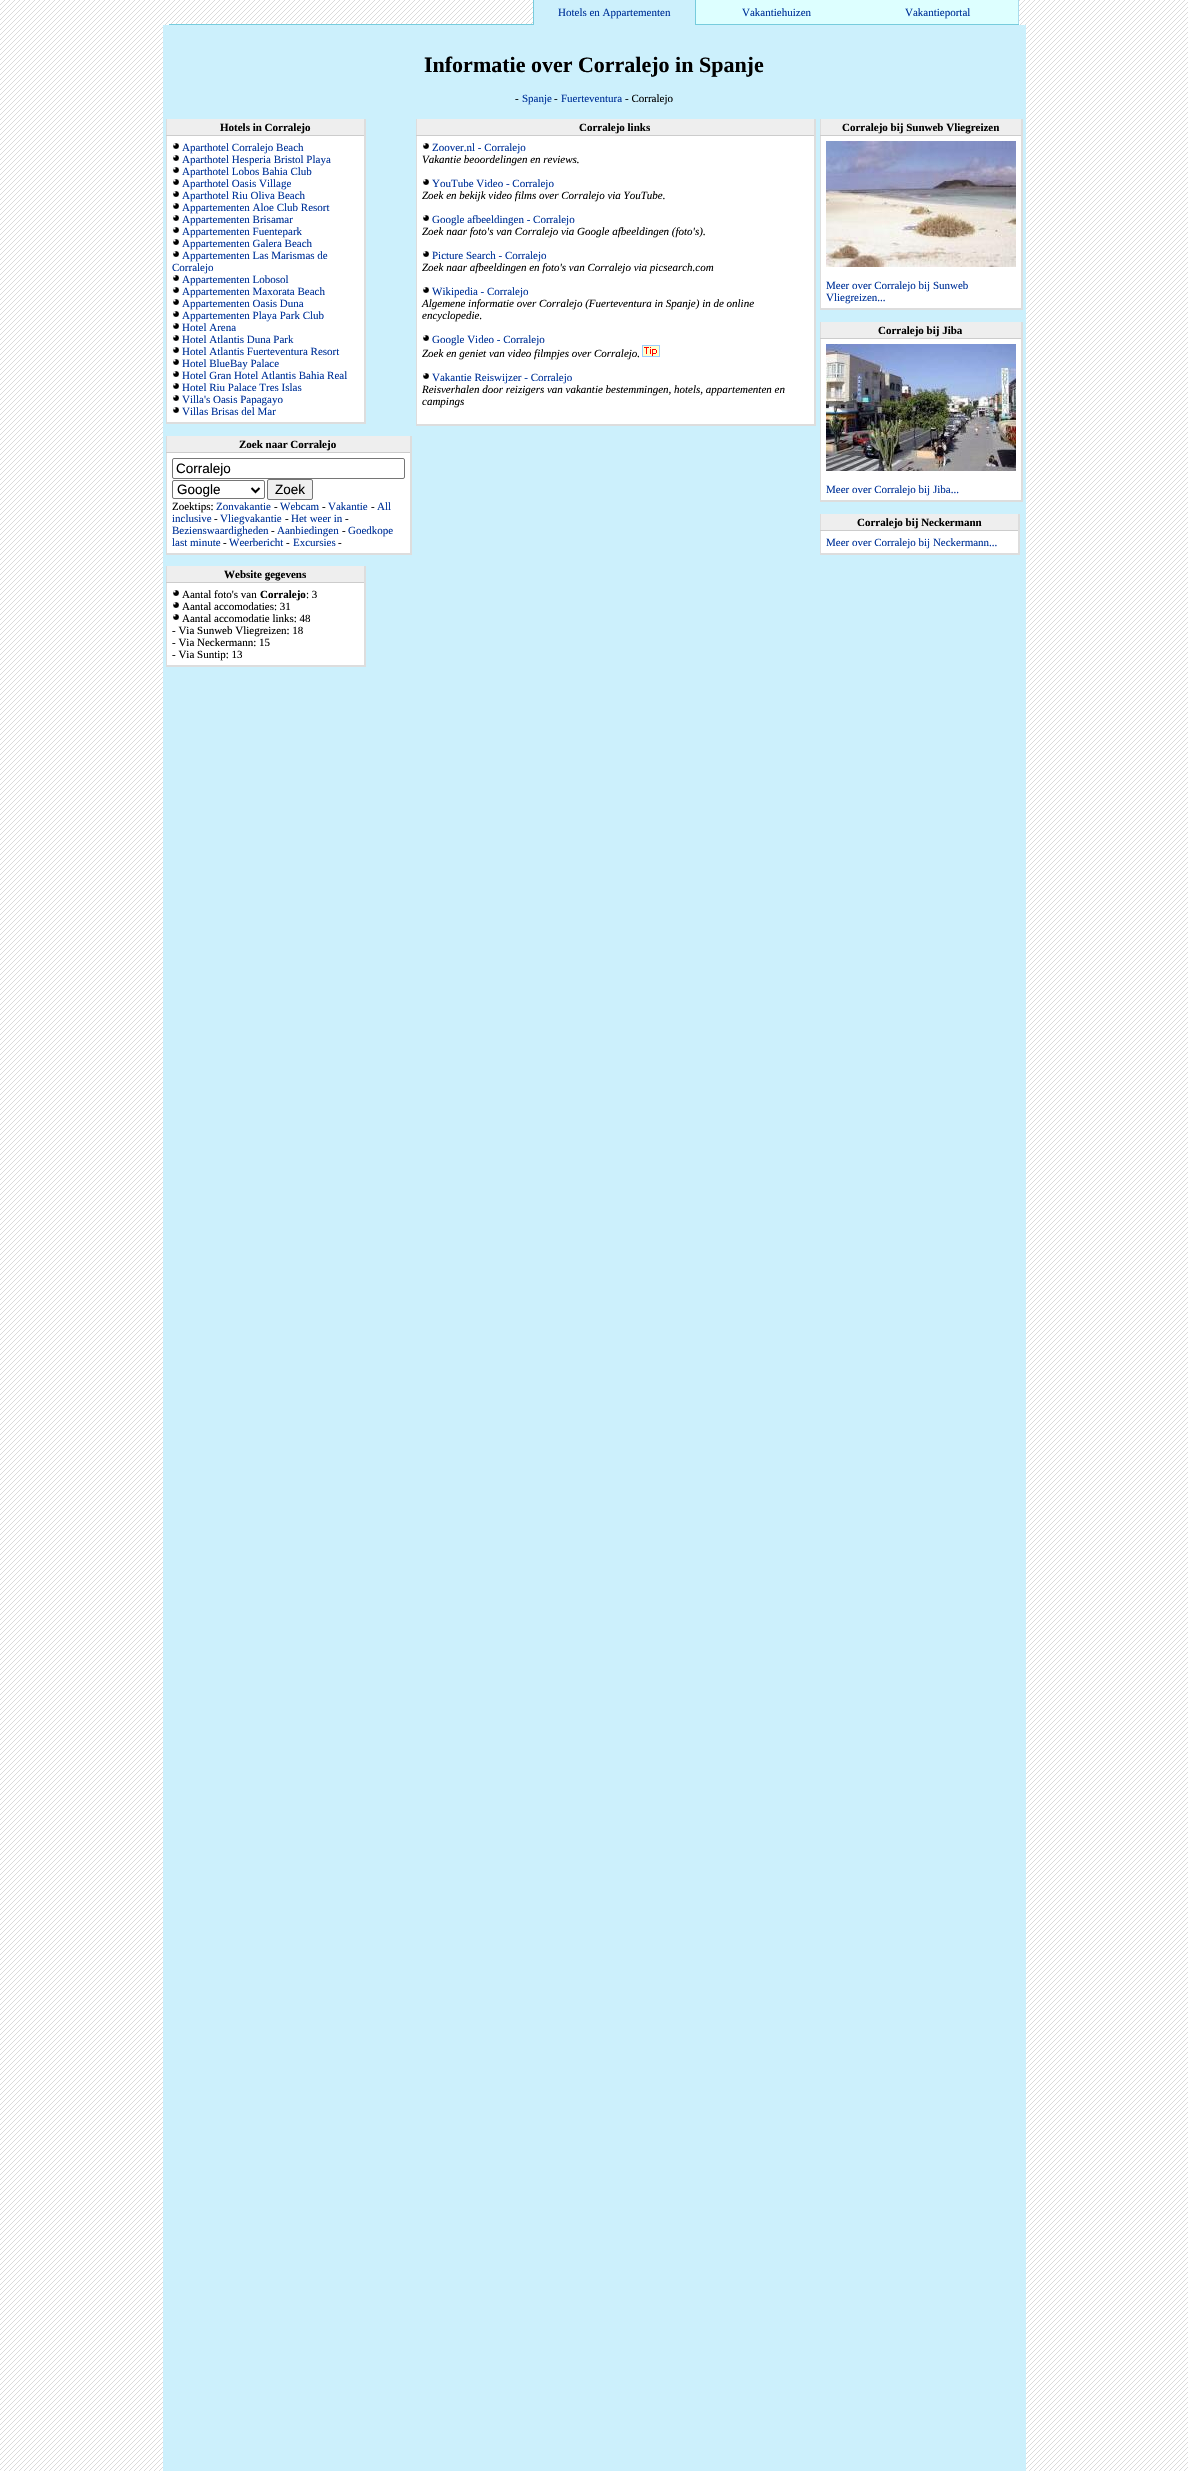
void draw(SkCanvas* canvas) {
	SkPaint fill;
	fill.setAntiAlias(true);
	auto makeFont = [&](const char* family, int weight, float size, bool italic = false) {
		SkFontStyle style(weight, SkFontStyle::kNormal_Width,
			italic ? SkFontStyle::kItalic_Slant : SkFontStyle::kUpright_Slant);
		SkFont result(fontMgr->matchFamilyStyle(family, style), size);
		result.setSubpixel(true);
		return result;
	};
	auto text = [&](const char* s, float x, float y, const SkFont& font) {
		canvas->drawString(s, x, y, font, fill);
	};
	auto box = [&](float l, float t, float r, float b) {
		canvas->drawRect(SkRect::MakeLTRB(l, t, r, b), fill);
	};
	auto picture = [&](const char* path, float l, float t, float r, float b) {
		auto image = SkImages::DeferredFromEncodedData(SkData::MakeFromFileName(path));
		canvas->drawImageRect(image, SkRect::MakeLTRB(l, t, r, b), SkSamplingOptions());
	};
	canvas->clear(0xFFFFFFFF);
	picture("image0.png", 0, 0, 1188, 2471);
	fill.setColor(0xFF77CCDD);
	box(533, 0, 534, 24);
	fill.setColor(0xFFCCF0FC);
	box(534, 0, 695, 25);
	fill.setColor(0xFF77CCDD);
	box(695, 0, 696, 25);
	fill.setColor(0xFFDDFFFF);
	box(696, 0, 1018, 24);
	fill.setColor(0xFFAADDEE);
	box(1018, 0, 1019, 24);
	fill.setColor(0xFF77CCDD);
	box(169, 24, 534, 25);
	box(696, 24, 1019, 25);
	fill.setColor(0xFFCCF0FC);
	box(163, 25, 1026, 2471);
	fill.setColor(0xFFFFFFFF);
	box(167, 136, 364, 422);
	fill.setColor(0xFFDDDDDD);
	box(166, 119, 167, 424);
	fill.setColor(0xFFCCCCCC);
	box(166, 135, 365, 136);
	fill.setColor(0xFFDDDDDD);
	box(364, 119, 366, 424);
	box(166, 422, 366, 424);
	fill.setColor(0xFFEEEEEE);
	box(167, 119, 364, 135);
	picture("image1.png", 173, 143, 179, 149);
	picture("image1.png", 173, 155, 179, 161);
	picture("image1.png", 173, 167, 179, 173);
	picture("image1.png", 173, 179, 179, 185);
	picture("image1.png", 173, 191, 179, 197);
	picture("image1.png", 173, 203, 179, 209);
	picture("image1.png", 173, 215, 179, 221);
	picture("image1.png", 173, 227, 179, 233);
	picture("image1.png", 173, 239, 179, 245);
	picture("image1.png", 173, 251, 179, 257);
	picture("image1.png", 173, 275, 179, 281);
	picture("image1.png", 173, 287, 179, 293);
	picture("image1.png", 173, 299, 179, 305);
	picture("image1.png", 173, 311, 179, 317);
	picture("image1.png", 173, 323, 179, 329);
	picture("image1.png", 173, 335, 179, 341);
	picture("image1.png", 173, 347, 179, 353);
	picture("image1.png", 173, 359, 179, 365);
	picture("image1.png", 173, 371, 179, 377);
	picture("image1.png", 173, 383, 179, 389);
	picture("image1.png", 173, 395, 179, 401);
	picture("image1.png", 173, 407, 179, 413);
	fill.setColor(0xFFFFFFFF);
	box(167, 453, 410, 553);
	fill.setColor(0xFFDDDDDD);
	box(166, 436, 167, 555);
	fill.setColor(0xFFCCCCCC);
	box(166, 452, 411, 453);
	fill.setColor(0xFFDDDDDD);
	box(410, 436, 412, 555);
	box(166, 553, 412, 555);
	fill.setColor(0xFFEEEEEE);
	box(167, 436, 410, 452);
	fill.setStyle(SkPaint::kStroke_Style);
	fill.setStrokeWidth(1);
	fill.setColor(0xFF767676);
	canvas->drawRoundRect(SkRect::MakeLTRB(172.5f, 458.5f, 404.5f, 478.5f), 1.5f, 1.5f, fill);
	canvas->drawRoundRect(SkRect::MakeLTRB(172.5f, 480.5f, 264.5f, 498.5f), 1.5f, 1.5f, fill);
	fill.setStrokeWidth(2);
	fill.setColor(0xFF000000);
	canvas->drawPath(SkPathBuilder().moveTo(251.5f, 488).lineTo(255.5f, 492).lineTo(259.5f, 488).detach(), fill);
	fill.setStyle(SkPaint::kFill_Style);
	fill.setColor(0xFFEFEFEF);
	canvas->drawRoundRect(SkRect::MakeLTRB(267.5f, 479.5f, 312.5f, 499.5f), 1.5f, 1.5f, fill);
	fill.setStyle(SkPaint::kStroke_Style);
	fill.setStrokeWidth(1);
	fill.setColor(0xFF767676);
	canvas->drawRoundRect(SkRect::MakeLTRB(267.5f, 479.5f, 312.5f, 499.5f), 1.5f, 1.5f, fill);
	fill.setStyle(SkPaint::kFill_Style);
	fill.setColor(0xFFFFFFFF);
	box(167, 583, 364, 665);
	fill.setColor(0xFFDDDDDD);
	box(166, 566, 167, 667);
	fill.setColor(0xFFCCCCCC);
	box(166, 582, 365, 583);
	fill.setColor(0xFFDDDDDD);
	box(364, 566, 366, 667);
	box(166, 665, 366, 667);
	fill.setColor(0xFFEEEEEE);
	box(167, 566, 364, 582);
	picture("image1.png", 173, 590, 179, 596);
	picture("image1.png", 173, 602, 179, 608);
	picture("image1.png", 173, 614, 179, 620);
	fill.setColor(0xFFFFFFFF);
	box(417, 136, 814, 424);
	fill.setColor(0xFFDDDDDD);
	box(416, 119, 417, 426);
	fill.setColor(0xFFCCCCCC);
	box(416, 135, 815, 136);
	fill.setColor(0xFFDDDDDD);
	box(814, 119, 816, 426);
	box(416, 424, 816, 426);
	fill.setColor(0xFFEEEEEE);
	box(417, 119, 814, 135);
	picture("image1.png", 423, 143, 429, 149);
	picture("image1.png", 423, 179, 429, 185);
	picture("image1.png", 423, 215, 429, 221);
	picture("image1.png", 423, 251, 429, 257);
	picture("image1.png", 423, 287, 429, 293);
	picture("image1.png", 423, 335, 429, 341);
	picture("image2.png", 642, 345, 660, 357);
	picture("image1.png", 423, 373, 429, 379);
	fill.setColor(0xFFFFFFFF);
	box(821, 136, 1021, 308);
	fill.setColor(0xFFDDDDDD);
	box(820, 119, 821, 310);
	fill.setColor(0xFFCCCCCC);
	box(820, 135, 1022, 136);
	fill.setColor(0xFFDDDDDD);
	box(1021, 119, 1023, 310);
	box(820, 308, 1023, 310);
	fill.setColor(0xFFEEEEEE);
	box(821, 119, 1021, 135);
	picture("image3.png", 826, 141, 1016, 267);
	fill.setColor(0xFFFFFFFF);
	box(821, 339, 1021, 500);
	fill.setColor(0xFFDDDDDD);
	box(820, 322, 821, 502);
	fill.setColor(0xFFCCCCCC);
	box(820, 338, 1022, 339);
	fill.setColor(0xFFDDDDDD);
	box(1021, 322, 1023, 502);
	box(820, 500, 1023, 502);
	fill.setColor(0xFFEEEEEE);
	box(821, 322, 1021, 338);
	picture("image4.png", 826, 344, 1016, 471);
	fill.setColor(0xFFFFFFFF);
	box(821, 531, 1018, 553);
	fill.setColor(0xFFDDDDDD);
	box(820, 514, 821, 555);
	fill.setColor(0xFFCCCCCC);
	box(820, 530, 1019, 531);
	fill.setColor(0xFFDDDDDD);
	box(1018, 514, 1020, 555);
	box(820, 553, 1020, 555);
	fill.setColor(0xFFEEEEEE);
	box(821, 514, 1018, 530);
	auto font1 = makeFont("Liberation Serif", 400, 11);
	fill.setColor(0xFF003399);
	text("Hotels en Appartementen", 558, 16, font1);
	text("Vakantiehuizen", 742, 16, font1);
	text("Vakantieportal", 905, 16, font1);
	auto font2 = makeFont("Liberation Serif", 700, 22);
	fill.setColor(0xFF000000);
	text("Informatie over Corralejo in Spanje", 424, 72, font2);
	text("-", 515, 102, font1);
	fill.setColor(0xFF003399);
	text("Spanje", 522, 102, font1);
	fill.setColor(0xFF000000);
	text("-", 554, 102, font1);
	fill.setColor(0xFF003399);
	text("Fuerteventura", 561, 102, font1);
	fill.setColor(0xFF000000);
	text("- Corralejo", 625, 102, font1);
	auto font3 = makeFont("Liberation Serif", 700, 11);
	text("Hotels in Corralejo", 220, 131, font3);
	fill.setColor(0xFF003399);
	text("Aparthotel Corralejo Beach", 182, 151, font1);
	text("Aparthotel Hesperia Bristol Playa", 182, 163, font1);
	text("Aparthotel Lobos Bahia Club", 182, 175, font1);
	text("Aparthotel Oasis Village", 182, 187, font1);
	text("Aparthotel Riu Oliva Beach", 182, 199, font1);
	text("Appartementen Aloe Club Resort", 182, 211, font1);
	text("Appartementen Brisamar", 182, 223, font1);
	text("Appartementen Fuentepark", 182, 235, font1);
	text("Appartementen Galera Beach", 182, 247, font1);
	text("Appartementen Las Marismas de", 182, 259, font1);
	text("Corralejo", 172, 271, font1);
	text("Appartementen Lobosol", 182, 283, font1);
	text("Appartementen Maxorata Beach", 182, 295, font1);
	text("Appartementen Oasis Duna", 182, 307, font1);
	text("Appartementen Playa Park Club", 182, 319, font1);
	text("Hotel Arena", 182, 331, font1);
	text("Hotel Atlantis Duna Park", 182, 343, font1);
	text("Hotel Atlantis Fuerteventura Resort", 182, 355, font1);
	text("Hotel BlueBay Palace", 182, 367, font1);
	text("Hotel Gran Hotel Atlantis Bahia Real", 182, 379, font1);
	text("Hotel Riu Palace Tres Islas", 182, 391, font1);
	text("Villa's Oasis Papagayo", 182, 403, font1);
	text("Villas Brisas del Mar", 182, 415, font1);
	fill.setColor(0xFF000000);
	text("Zoek naar Corralejo", 239, 448, font3);
	auto font4 = makeFont("Liberation Sans", 400, 13.5f);
	text("Corralejo", 176, 473, font4);
	text("Google", 177, 494, font4);
	text("Zoek", 275, 494, font4);
	text("Zoektips:", 172, 510, font1);
	fill.setColor(0xFF003399);
	text("Zonvakantie", 216, 510, font1);
	fill.setColor(0xFF000000);
	text("-", 274, 510, font1);
	fill.setColor(0xFF003399);
	text("Webcam", 280, 510, font1);
	fill.setColor(0xFF000000);
	text("-", 322, 510, font1);
	fill.setColor(0xFF003399);
	text("Vakantie", 328, 510, font1);
	fill.setColor(0xFF000000);
	text("-", 371, 510, font1);
	fill.setColor(0xFF003399);
	text("All", 377, 510, font1);
	text("inclusive", 172, 522, font1);
	fill.setColor(0xFF000000);
	text("-", 214, 522, font1);
	fill.setColor(0xFF003399);
	text("Vliegvakantie", 220, 522, font1);
	fill.setColor(0xFF000000);
	text("-", 285, 522, font1);
	fill.setColor(0xFF003399);
	text("Het weer in", 291, 522, font1);
	fill.setColor(0xFF000000);
	text("-", 345, 522, font1);
	fill.setColor(0xFF003399);
	text("Bezienswaardigheden", 172, 534, font1);
	fill.setColor(0xFF000000);
	text("-", 271, 534, font1);
	fill.setColor(0xFF003399);
	text("Aanbiedingen", 277, 534, font1);
	fill.setColor(0xFF000000);
	text("-", 342, 534, font1);
	fill.setColor(0xFF003399);
	text("Goedkope", 348, 534, font1);
	text("last minute", 172, 546, font1);
	fill.setColor(0xFF000000);
	text("-", 223, 546, font1);
	fill.setColor(0xFF003399);
	text("Weerbericht", 229, 546, font1);
	fill.setColor(0xFF000000);
	text("-", 286, 546, font1);
	fill.setColor(0xFF003399);
	text("Excursies", 293, 546, font1);
	fill.setColor(0xFF000000);
	text("-", 338, 546, font1);
	text("Website gegevens", 224, 578, font3);
	text("Aantal foto's van", 182, 598, font1);
	text("Corralejo", 260, 598, font3);
	text(": 3", 306, 598, font1);
	text("Aantal accomodaties: 31", 182, 610, font1);
	text("Aantal accomodatie links: 48", 182, 622, font1);
	text("- Via Sunweb Vliegreizen: 18", 172, 634, font1);
	text("- Via Neckermann: 15", 172, 646, font1);
	text("- Via Suntip: 13", 172, 658, font1);
	text("Corralejo links", 579, 131, font3);
	fill.setColor(0xFF003399);
	text("Zoover.nl - Corralejo", 432, 151, font1);
	auto font5 = makeFont("Liberation Serif", 400, 11, true);
	fill.setColor(0xFF000000);
	text("Vakantie beoordelingen en reviews.", 422, 163, font5);
	fill.setColor(0xFF003399);
	text("YouTube Video - Corralejo", 432, 187, font1);
	fill.setColor(0xFF000000);
	text("Zoek en bekijk video films over Corralejo via YouTube.", 422, 199, font5);
	fill.setColor(0xFF003399);
	text("Google afbeeldingen - Corralejo", 432, 223, font1);
	fill.setColor(0xFF000000);
	text("Zoek naar foto's van Corralejo via Google afbeeldingen (foto's).", 422, 235, font5);
	fill.setColor(0xFF003399);
	text("Picture Search - Corralejo", 432, 259, font1);
	fill.setColor(0xFF000000);
	text("Zoek naar afbeeldingen en foto's van Corralejo via picsearch.com", 422, 271, font5);
	fill.setColor(0xFF003399);
	text("Wikipedia - Corralejo", 432, 295, font1);
	fill.setColor(0xFF000000);
	text("Algemene informatie over Corralejo (Fuerteventura in Spanje) in de online", 422, 307, font5);
	text("encyclopedie.", 422, 319, font5);
	fill.setColor(0xFF003399);
	text("Google Video - Corralejo", 432, 343, font1);
	fill.setColor(0xFF000000);
	text("Zoek en geniet van video filmpjes over Corralejo.", 422, 357, font5);
	fill.setColor(0xFF003399);
	text("Vakantie Reiswijzer - Corralejo", 432, 381, font1);
	fill.setColor(0xFF000000);
	text("Reisverhalen door reizigers van vakantie bestemmingen, hotels, appartementen en", 422, 393, font5);
	text("campings", 422, 405, font5);
	text("Corralejo bij Sunweb Vliegreizen", 842, 131, font3);
	fill.setColor(0xFF003399);
	text("Meer over Corralejo bij Sunweb", 826, 289, font1);
	text("Vliegreizen...", 826, 301, font1);
	fill.setColor(0xFF000000);
	text("Corralejo bij Jiba", 878, 334, font3);
	fill.setColor(0xFF003399);
	text("Meer over Corralejo bij Jiba...", 826, 493, font1);
	fill.setColor(0xFF000000);
	text("Corralejo bij Neckermann", 857, 526, font3);
	fill.setColor(0xFF003399);
	text("Meer over Corralejo bij Neckermann...", 826, 546, font1);
}
